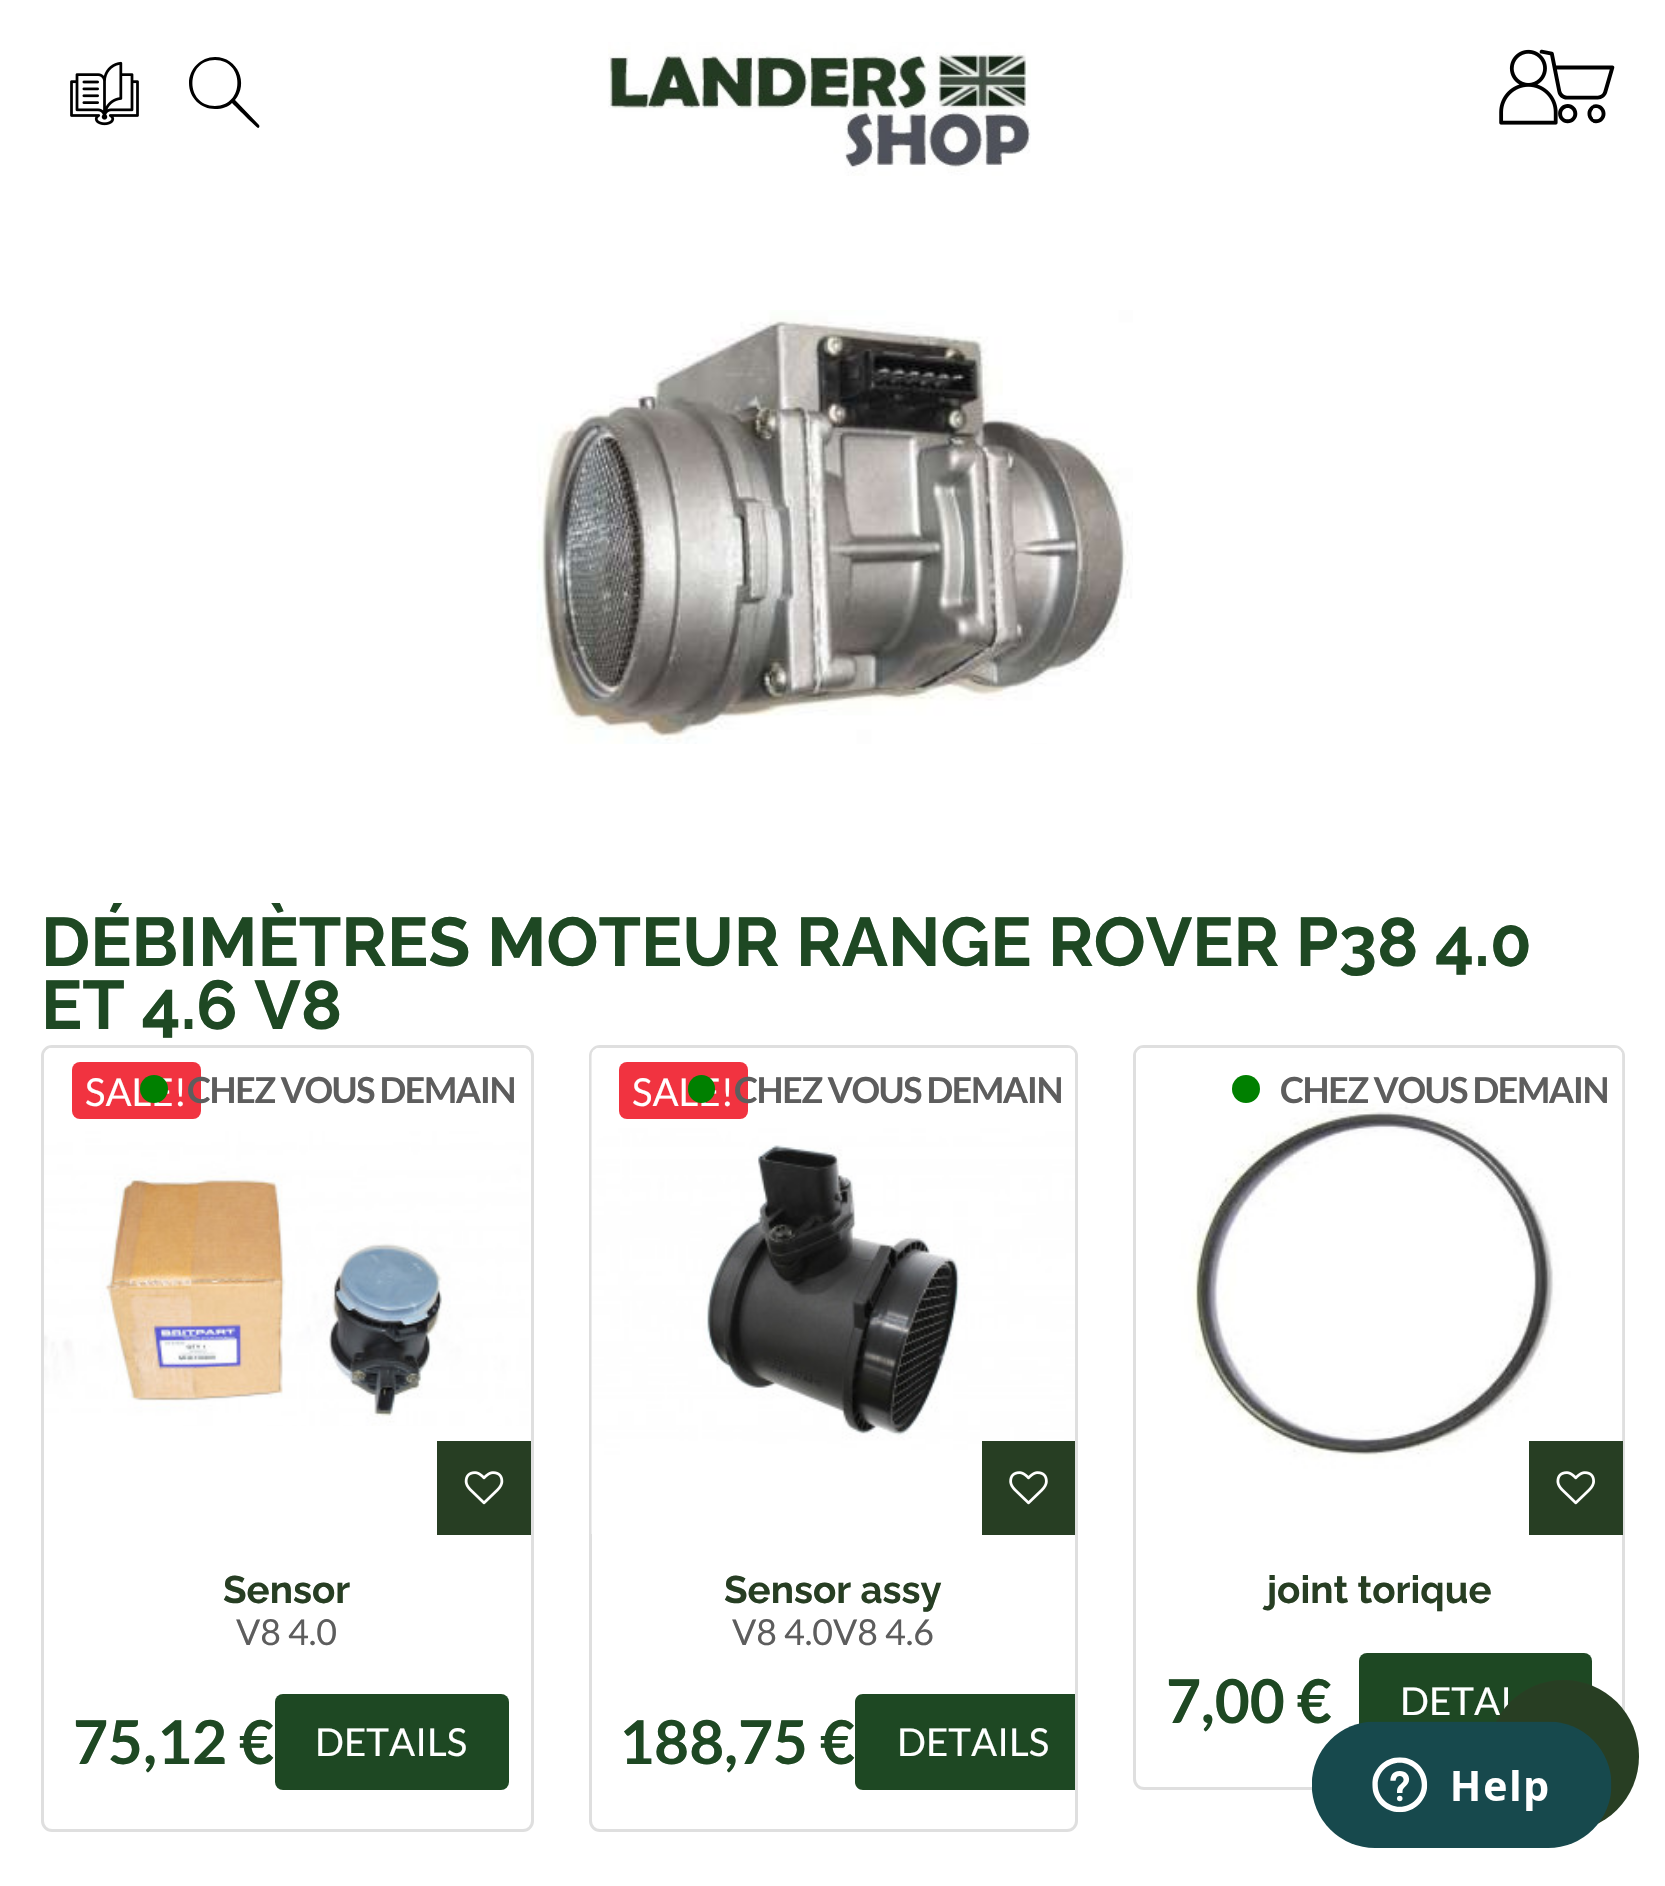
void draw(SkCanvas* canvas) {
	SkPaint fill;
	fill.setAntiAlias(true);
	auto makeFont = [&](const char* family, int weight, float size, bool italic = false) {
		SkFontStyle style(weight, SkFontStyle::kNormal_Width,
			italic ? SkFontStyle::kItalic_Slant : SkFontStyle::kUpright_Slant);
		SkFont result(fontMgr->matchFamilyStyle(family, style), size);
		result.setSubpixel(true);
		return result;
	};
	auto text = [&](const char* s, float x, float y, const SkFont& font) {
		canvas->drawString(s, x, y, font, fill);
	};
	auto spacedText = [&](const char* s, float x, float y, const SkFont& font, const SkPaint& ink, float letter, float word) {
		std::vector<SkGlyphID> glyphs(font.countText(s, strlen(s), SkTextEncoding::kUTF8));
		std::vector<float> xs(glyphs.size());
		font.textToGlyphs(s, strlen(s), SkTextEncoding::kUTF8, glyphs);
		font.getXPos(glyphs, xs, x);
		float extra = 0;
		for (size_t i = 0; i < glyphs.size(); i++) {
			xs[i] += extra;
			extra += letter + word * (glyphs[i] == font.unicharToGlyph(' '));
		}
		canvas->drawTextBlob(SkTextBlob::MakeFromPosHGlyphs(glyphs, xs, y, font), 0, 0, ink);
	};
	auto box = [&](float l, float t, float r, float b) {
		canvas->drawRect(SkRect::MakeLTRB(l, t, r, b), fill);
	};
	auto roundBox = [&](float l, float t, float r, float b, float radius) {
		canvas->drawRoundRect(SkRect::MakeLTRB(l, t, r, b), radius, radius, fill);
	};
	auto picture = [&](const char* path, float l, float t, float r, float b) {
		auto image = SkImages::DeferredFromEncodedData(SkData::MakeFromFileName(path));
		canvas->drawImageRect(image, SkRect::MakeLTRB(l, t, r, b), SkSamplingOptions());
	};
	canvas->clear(0xFFFFFFFF);
	picture("image0.png", 70, 61, 139, 126);
	fill.setColor(0xFF000000);
	canvas->drawPath(SkPathBuilder().moveTo(215, 57).cubicTo(201, 57, 189, 69, 189, 83).cubicTo(189, 98, 201, 109, 215, 109).cubicTo(222, 109, 228, 107, 232, 103).cubicTo(235, 106, 256, 127, 258, 128).cubicTo(259, 128, 260, 126, 259, 125).lineTo(235, 100).cubicTo(249, 84, 238, 57, 215, 57).close().moveTo(215, 60).cubicTo(245, 60, 245, 106, 215, 106).cubicTo(185, 106, 185, 60, 215, 60).close().detach(), fill);
	picture("image1.png", 608, 42, 1031, 176);
	picture("image3.png", 1539, 49, 1615, 124);
	picture("image2.png", 1499, 49, 1558, 125);
	picture("image4.png", 536, 310, 1133, 744);
	fill.setStyle(SkPaint::kStroke_Style);
	fill.setStrokeWidth(3);
	fill.setColor(0xFFDFDFDF);
	canvas->drawRoundRect(SkRect::MakeLTRB(42.5f, 1046.5f, 532.5f, 1830.5f), 9.5f, 9.5f, fill);
	picture("image5.png", 44, 1048, 529, 1426);
	fill.setStyle(SkPaint::kFill_Style);
	fill.setColor(0xFFF13340);
	roundBox(72, 1062, 201, 1119, 8);
	fill.setColor(0xFF273E23);
	box(437, 1441, 531, 1535);
	picture("image6.png", 464, 1471, 504, 1505);
	fill.setColor(0xFF1E4823);
	roundBox(275, 1694, 509, 1790, 8);
	fill.setStyle(SkPaint::kStroke_Style);
	fill.setColor(0xFFDFDFDF);
	canvas->drawRoundRect(SkRect::MakeLTRB(590.5f, 1046.5f, 1076.5f, 1830.5f), 9.5f, 9.5f, fill);
	picture("image7.png", 591, 1048, 1075, 1534);
	fill.setStyle(SkPaint::kFill_Style);
	fill.setColor(0xFFF13340);
	roundBox(619, 1062, 748, 1119, 8);
	fill.setColor(0xFF273E23);
	box(982, 1441, 1075, 1535);
	picture("image8.png", 1009, 1471, 1048, 1505);
	fill.setColor(0xFF1E4823);
	canvas->drawPath(SkPathBuilder().moveTo(863, 1694).lineTo(1075, 1694).lineTo(1075, 1790).lineTo(863, 1790).cubicTo(858.5f, 1790, 855, 1786.5f, 855, 1782).lineTo(855, 1702).cubicTo(855, 1697.5f, 858.5f, 1694, 863, 1694).close().detach(), fill);
	fill.setStyle(SkPaint::kStroke_Style);
	fill.setColor(0xFFDFDFDF);
	canvas->drawRoundRect(SkRect::MakeLTRB(1134.5f, 1046.5f, 1623.5f, 1788.5f), 9.5f, 9.5f, fill);
	picture("image9.png", 1136, 1048, 1623, 1534);
	fill.setStyle(SkPaint::kFill_Style);
	fill.setColor(0xFF008000);
	canvas->drawCircle(1246, 1089, 14, fill);
	fill.setColor(0xFF273E23);
	box(1529, 1441, 1623, 1535);
	picture("image10.png", 1556, 1471, 1595, 1505);
	fill.setColor(0xFF1E4823);
	roundBox(1359, 1653, 1592, 1749, 8);
	auto font1 = makeFont("Raleway", 700, 68.75f);
	text("DÉBIMÈTRES MOTEUR RANGE ROVER P38 4.0", 41, 966, font1);
	text("ET 4.6 V8", 41, 1029, font1);
	auto font2 = makeFont("Lato", 400, 38.5f);
	fill.setColor(0xFFFFFFFF);
	text("SALE!", 85, 1106, font2);
	fill.setColor(0xFF008000);
	canvas->drawCircle(154, 1089, 14, fill);
	auto font3 = makeFont("Lato", 700, 35.75f);
	fill.setColor(0xFF5D5D5D);
	spacedText("CHEZ VOUS DEMAIN", 187, 1103, font3, fill, -1.4f, 0);
	auto font4 = makeFont("Raleway", 700, 38.5f);
	fill.setColor(0xFF273E23);
	text("Sensor", 223, 1603, font4);
	auto font5 = makeFont("Lato", 400, 35.75f);
	fill.setColor(0xFF5D5D5D);
	text("V8 4.0", 236, 1645, font5);
	auto font6 = makeFont("Lato", 700, 60.5f);
	fill.setColor(0xFF1E4823);
	text("75,12 €", 73, 1764, font6);
	fill.setColor(0xFFFFFFFF);
	text("DETAILS", 315, 1756, font2);
	text("SALE!", 632, 1106, font2);
	fill.setColor(0xFF008000);
	roundBox(688, 1075, 715, 1103, 13.5f);
	fill.setColor(0xFF5D5D5D);
	spacedText("CHEZ VOUS DEMAIN", 734, 1103, font3, fill, -1.4f, 0);
	fill.setColor(0xFF273E23);
	text("Sensor assy", 724, 1603, font4);
	fill.setColor(0xFF5D5D5D);
	text("V8 4.0V8 4.6", 732, 1645, font5);
	fill.setColor(0xFF1E4823);
	text("188,75 €", 619, 1764, font6);
	fill.setColor(0xFFFFFFFF);
	text("DETAILS", 897, 1756, font2);
	fill.setColor(0xFF5D5D5D);
	spacedText("CHEZ VOUS DEMAIN", 1280, 1103, font3, fill, -1.4f, 0);
	fill.setColor(0xFF273E23);
	text("joint torique", 1267, 1603, font4);
	fill.setColor(0xFF1E4823);
	text("7,00 €", 1166, 1723, font6);
	fill.setColor(0xFFFFFFFF);
	text("DETAI", 1400, 1715, font2);
	fill.setColor(0xFF283E23);
	roundBox(1488, 1680, 1639, 1832, 75.5f);
	picture("image11.png", 1312, 1721, 1612, 1848);
}
